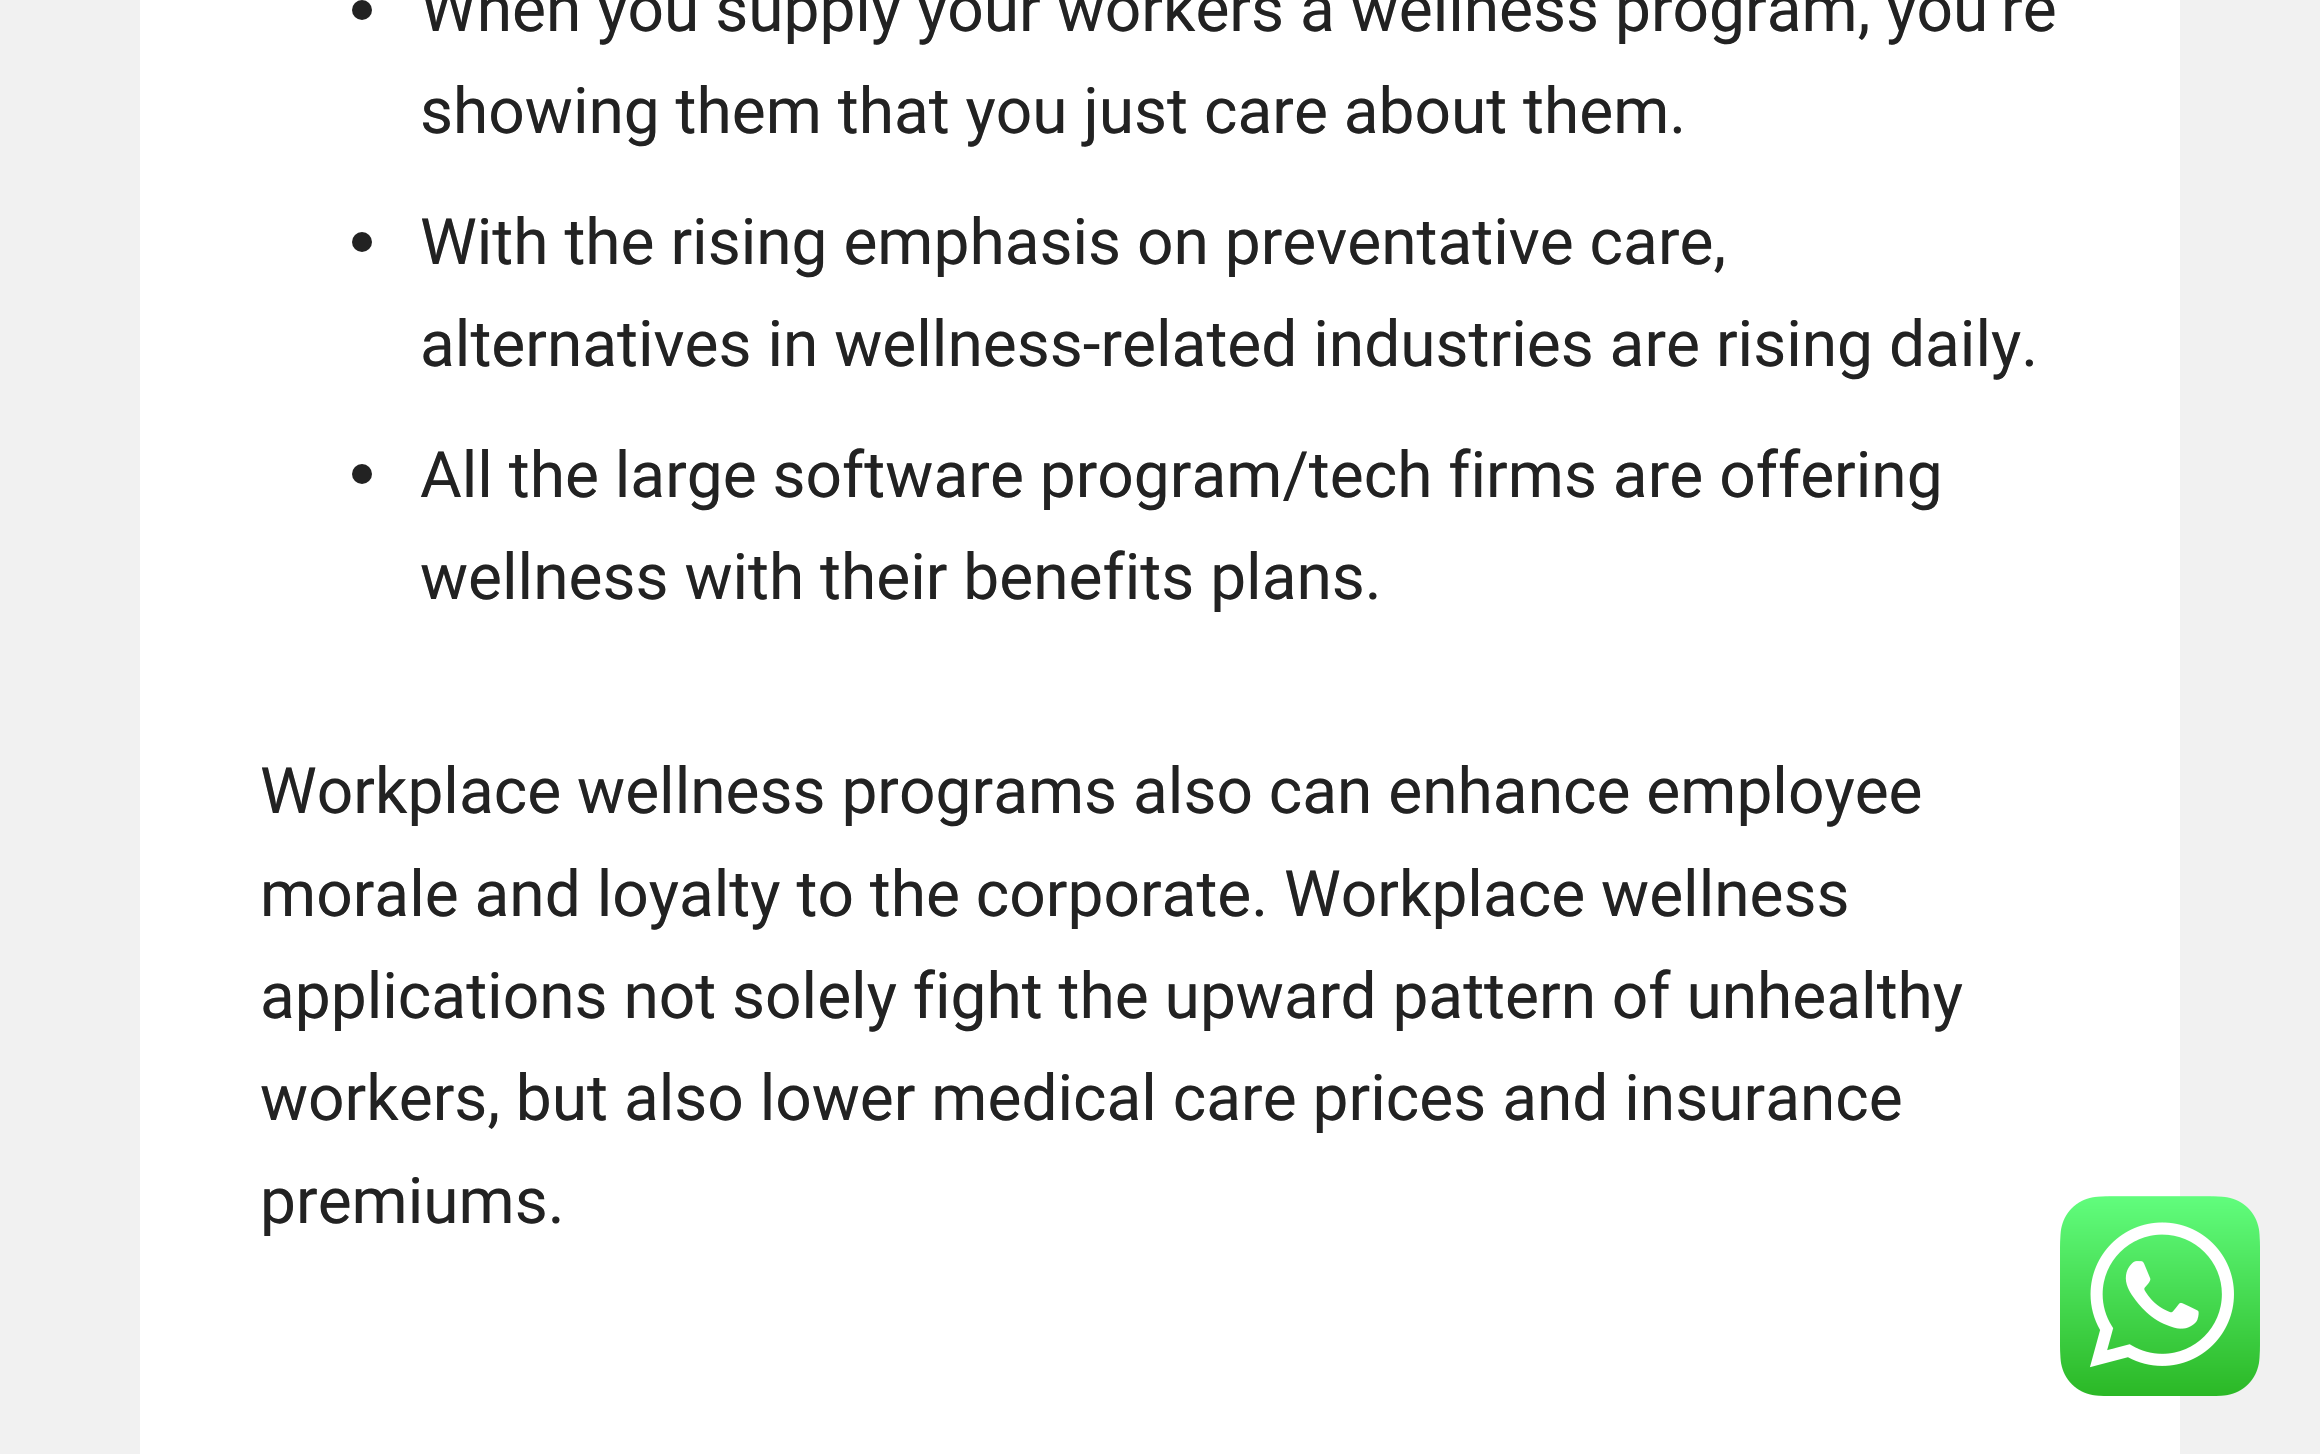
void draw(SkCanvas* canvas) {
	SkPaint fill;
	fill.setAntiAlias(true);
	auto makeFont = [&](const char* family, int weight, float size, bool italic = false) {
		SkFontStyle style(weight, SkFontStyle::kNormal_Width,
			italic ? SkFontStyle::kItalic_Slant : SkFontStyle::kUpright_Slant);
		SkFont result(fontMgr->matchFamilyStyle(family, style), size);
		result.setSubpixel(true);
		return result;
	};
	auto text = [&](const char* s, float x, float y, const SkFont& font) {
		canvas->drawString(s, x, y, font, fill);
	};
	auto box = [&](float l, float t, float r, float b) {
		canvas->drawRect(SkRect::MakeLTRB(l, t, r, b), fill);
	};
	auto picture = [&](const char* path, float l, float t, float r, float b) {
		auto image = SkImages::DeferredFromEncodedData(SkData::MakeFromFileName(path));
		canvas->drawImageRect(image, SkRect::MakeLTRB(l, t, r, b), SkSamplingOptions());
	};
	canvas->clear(0xFFF1F1F1);
	fill.setColor(0xFFFFFFFF);
	box(140, 0, 2180, 1454);
	fill.setColor(0xFF222222);
	canvas->drawCircle(362, 10, 10, fill);
	canvas->drawCircle(362, 242, 10, fill);
	canvas->drawCircle(362, 474, 10, fill);
	picture("image0.png", 2060, 1196, 2260, 1396);
	auto font1 = makeFont("Roboto", 400, 64);
	text("When you supply your workers a wellness program, you’re", 420, 31, font1);
	text("showing them that you just care about them.", 420, 133, font1);
	text("With the rising emphasis on preventative care,", 420, 264, font1);
	text("alternatives in wellness-related industries are rising daily.", 420, 366, font1);
	text("All the large software program/tech firms are offering", 420, 497, font1);
	text("wellness with their benefits plans.", 420, 599, font1);
	text("Workplace wellness programs also can enhance employee", 260, 813, font1);
	text("morale and loyalty to the corporate. Workplace wellness", 260, 916, font1);
	text("applications not solely fight the upward pattern of unhealthy", 260, 1018, font1);
	text("workers, but also lower medical care prices and insurance", 260, 1120, font1);
	text("premiums.", 260, 1223, font1);
}
